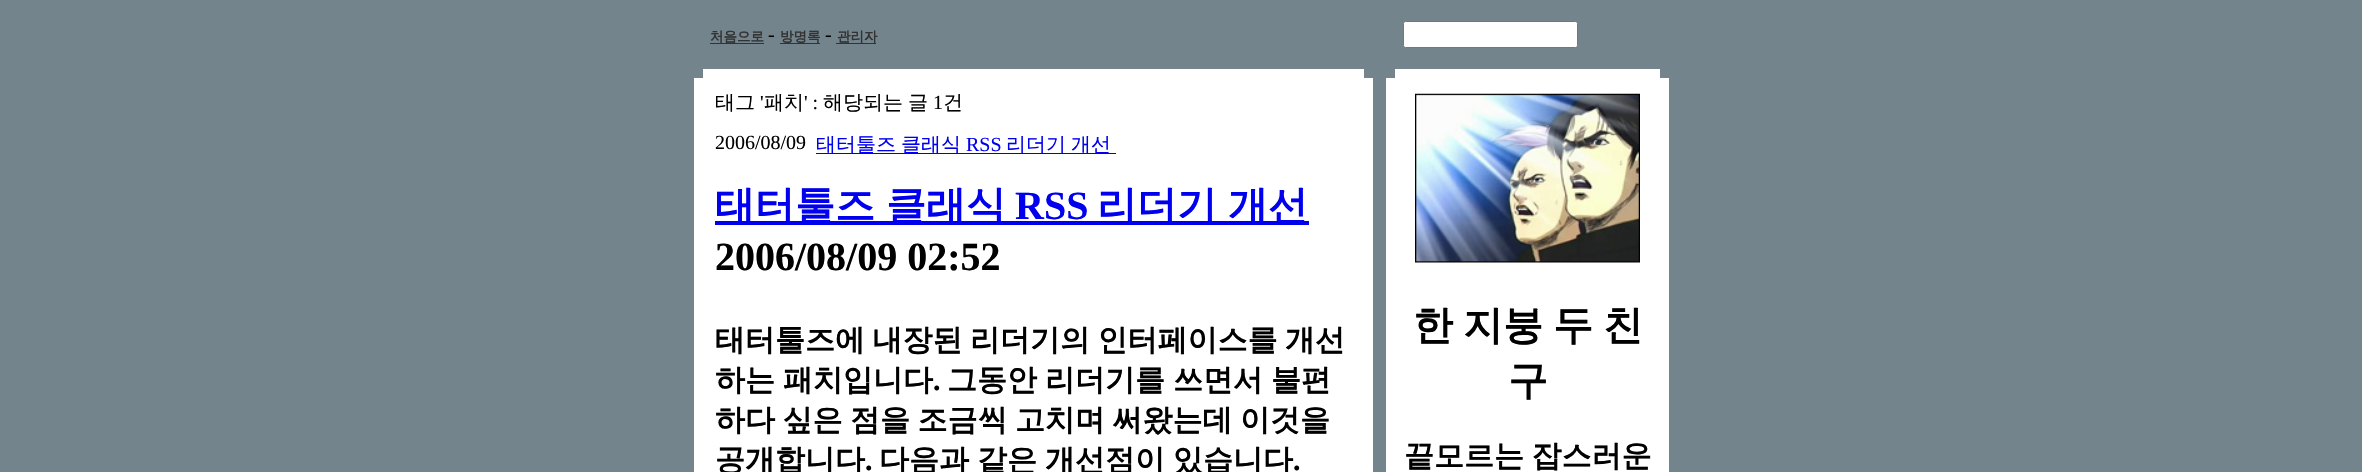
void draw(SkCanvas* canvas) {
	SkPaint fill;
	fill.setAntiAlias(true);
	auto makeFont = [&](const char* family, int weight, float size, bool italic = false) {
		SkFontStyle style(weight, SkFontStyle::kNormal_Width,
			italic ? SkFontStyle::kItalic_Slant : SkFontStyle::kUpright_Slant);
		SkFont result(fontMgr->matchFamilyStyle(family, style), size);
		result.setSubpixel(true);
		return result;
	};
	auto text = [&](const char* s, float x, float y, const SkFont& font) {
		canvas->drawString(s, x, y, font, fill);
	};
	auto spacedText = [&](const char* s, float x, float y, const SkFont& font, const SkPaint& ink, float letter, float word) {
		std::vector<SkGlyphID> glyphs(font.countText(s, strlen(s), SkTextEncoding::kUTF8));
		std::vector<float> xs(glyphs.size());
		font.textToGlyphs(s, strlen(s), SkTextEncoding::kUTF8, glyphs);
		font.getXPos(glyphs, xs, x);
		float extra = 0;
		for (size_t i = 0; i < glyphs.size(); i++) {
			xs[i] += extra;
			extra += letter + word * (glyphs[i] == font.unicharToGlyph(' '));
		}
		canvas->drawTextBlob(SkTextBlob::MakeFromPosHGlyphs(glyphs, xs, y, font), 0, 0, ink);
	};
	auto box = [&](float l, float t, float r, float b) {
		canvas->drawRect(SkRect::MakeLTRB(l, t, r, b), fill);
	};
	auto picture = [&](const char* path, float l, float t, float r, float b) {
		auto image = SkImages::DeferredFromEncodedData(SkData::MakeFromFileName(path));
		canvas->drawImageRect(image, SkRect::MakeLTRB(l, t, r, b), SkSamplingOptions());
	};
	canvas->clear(0xFF73848C);
	fill.setColor(0xFF333333);
	box(710, 43, 764, 44);
	box(780, 43, 820, 44);
	box(836, 43, 876, 44);
	fill.setColor(0xFFFFFFFF);
	canvas->drawRoundRect(SkRect::MakeLTRB(1403.5f, 21.5f, 1577.5f, 47.5f), 2, 2, fill);
	fill.setStyle(SkPaint::kStroke_Style);
	fill.setStrokeWidth(1);
	fill.setColor(0xFF767676);
	canvas->drawRoundRect(SkRect::MakeLTRB(1403.5f, 21.5f, 1577.5f, 47.5f), 2, 2, fill);
	fill.setStyle(SkPaint::kFill_Style);
	fill.setColor(0xFFFFFFFF);
	box(703, 69, 1364, 78);
	box(694, 78, 1373, 472);
	fill.setColor(0xFF0000EE);
	box(816, 153, 1116, 154);
	box(715, 221, 1309, 225);
	fill.setColor(0xFFFFFFFF);
	box(1395, 69, 1660, 78);
	box(1386, 78, 1669, 472);
	picture("image0.png", 1415, 93, 1640, 263);
	auto font1 = makeFont("WenQuanYi Zen Hei", 700, 13.5f);
	fill.setColor(0xFF333333);
	text("처음으로", 710, 41, font1);
	auto font2 = makeFont("Liberation Serif", 400, 20);
	fill.setColor(0xFF000000);
	text("-", 768, 41, font2);
	fill.setColor(0xFF333333);
	text("방명록", 780, 41, font1);
	fill.setColor(0xFF000000);
	text("-", 825, 41, font2);
	fill.setColor(0xFF333333);
	text("관리자", 837, 41, font1);
	auto font3 = makeFont("WenQuanYi Zen Hei", 500, 20);
	fill.setColor(0xFF000000);
	text("태그", 715, 109, font3);
	text("'", 760, 109, font2);
	text("패치", 764, 109, font3);
	text("' :", 804, 109, font2);
	text("해당되는", 823, 109, font3);
	text("글", 908, 109, font3);
	text("1", 933, 109, font2);
	text("건", 943, 109, font3);
	text("2006/08/09", 715, 149, font2);
	fill.setColor(0xFF0000EE);
	spacedText("태터툴즈 클래식", 816, 151, font3, fill, 0, -1);
	text("RSS", 966, 151, font2);
	spacedText("리더기 개선", 1006, 151, font3, fill, 0, -1);
	auto font4 = makeFont("WenQuanYi Zen Hei", 700, 40);
	spacedText("태터툴즈 클래식", 715, 219, font4, fill, 0, -1);
	auto font5 = makeFont("Liberation Serif", 700, 40);
	text("RSS", 1015, 219, font5);
	spacedText("리더기 개선", 1097, 219, font4, fill, 0, -1);
	fill.setColor(0xFF000000);
	text("2006/08/09 02:52", 715, 270, font5);
	auto font6 = makeFont("WenQuanYi Zen Hei", 700, 30);
	spacedText("태터툴즈에 내장된 리더기의 인터페이스를 개선", 715, 350, font6, fill, 0, -1.5f);
	spacedText("하는 패치입니다", 715, 390, font6, fill, 0, -1);
	auto font7 = makeFont("Liberation Serif", 700, 30);
	text(".", 933, 390, font7);
	spacedText("그동안 리더기를 쓰면서 불편", 947, 390, font6, fill, 0, -1);
	spacedText("하다 싶은 점을 조금씩 고치며 써왔는데 이것을", 715, 430, font6, fill, 0, -1.5f);
	text("공개합니다", 715, 470, font6);
	text(".", 865, 470, font7);
	spacedText("다음과 같은 개선점이 있습니다", 879, 470, font6, fill, 0, -1);
	text(".", 1293, 470, font7);
	spacedText("한 지붕 두 친", 1413, 339, font4, fill, 0, -2);
	text("구", 1508, 394, font4);
	spacedText("끝모르는 잡스러운", 1404, 466, font6, fill, 0, -1.5f);
}
